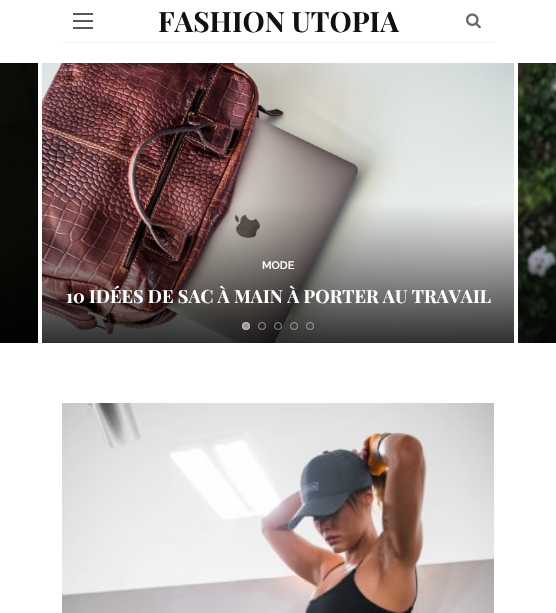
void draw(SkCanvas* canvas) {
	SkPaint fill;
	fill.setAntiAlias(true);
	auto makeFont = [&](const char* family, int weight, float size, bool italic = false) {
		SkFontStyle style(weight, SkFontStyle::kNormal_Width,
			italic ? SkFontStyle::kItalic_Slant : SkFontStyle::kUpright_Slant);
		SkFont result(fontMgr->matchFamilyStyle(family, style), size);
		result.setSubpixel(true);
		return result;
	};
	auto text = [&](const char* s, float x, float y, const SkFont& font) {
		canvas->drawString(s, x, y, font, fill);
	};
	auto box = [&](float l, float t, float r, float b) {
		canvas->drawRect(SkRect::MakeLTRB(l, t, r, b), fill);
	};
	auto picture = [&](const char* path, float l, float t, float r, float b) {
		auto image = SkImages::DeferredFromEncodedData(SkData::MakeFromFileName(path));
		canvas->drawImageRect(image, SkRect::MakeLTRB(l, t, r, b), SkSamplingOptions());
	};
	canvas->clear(0xFFFFFFFF);
	fill.setColor(0xFFF2F2F2);
	box(62, 42, 494, 43);
	fill.setColor(0xFF585858);
	box(73, 20, 93, 22);
	box(73, 13, 93, 15);
	box(73, 27, 93, 29);
	picture("image0.png", 466, 13, 481, 29);
	picture("image1.png", 0, 63, 38, 343);
	picture("image2.png", 42, 63, 514, 343);
	picture("image3.png", 518, 63, 556, 343);
	fill.setColor(0x80FFFFFF);
	canvas->drawCircle(246, 326, 4, fill);
	fill.setStyle(SkPaint::kStroke_Style);
	fill.setStrokeWidth(1);
	canvas->drawCircle(246, 326, 3.5f, fill);
	canvas->drawCircle(262, 326, 3.5f, fill);
	canvas->drawCircle(278, 326, 3.5f, fill);
	canvas->drawCircle(294, 326, 3.5f, fill);
	canvas->drawCircle(310, 326, 3.5f, fill);
	picture("image4.png", 62, 403, 494, 613);
	auto font1 = makeFont("Playfair Display", 700, 28);
	fill.setStyle(SkPaint::kFill_Style);
	fill.setColor(0xFF111111);
	text("FASHION UTOPIA", 158, 32, font1);
	auto font2 = makeFont("Raleway", 600, 11);
	fill.setColor(0xFFFFFFFF);
	text("MODE", 262, 269, font2);
	auto font3 = makeFont("Playfair Display", 700, 18.2f);
	text("10 IDÉES DE SAC À MAIN À PORTER AU TRAVAIL", 66, 303, font3);
}
